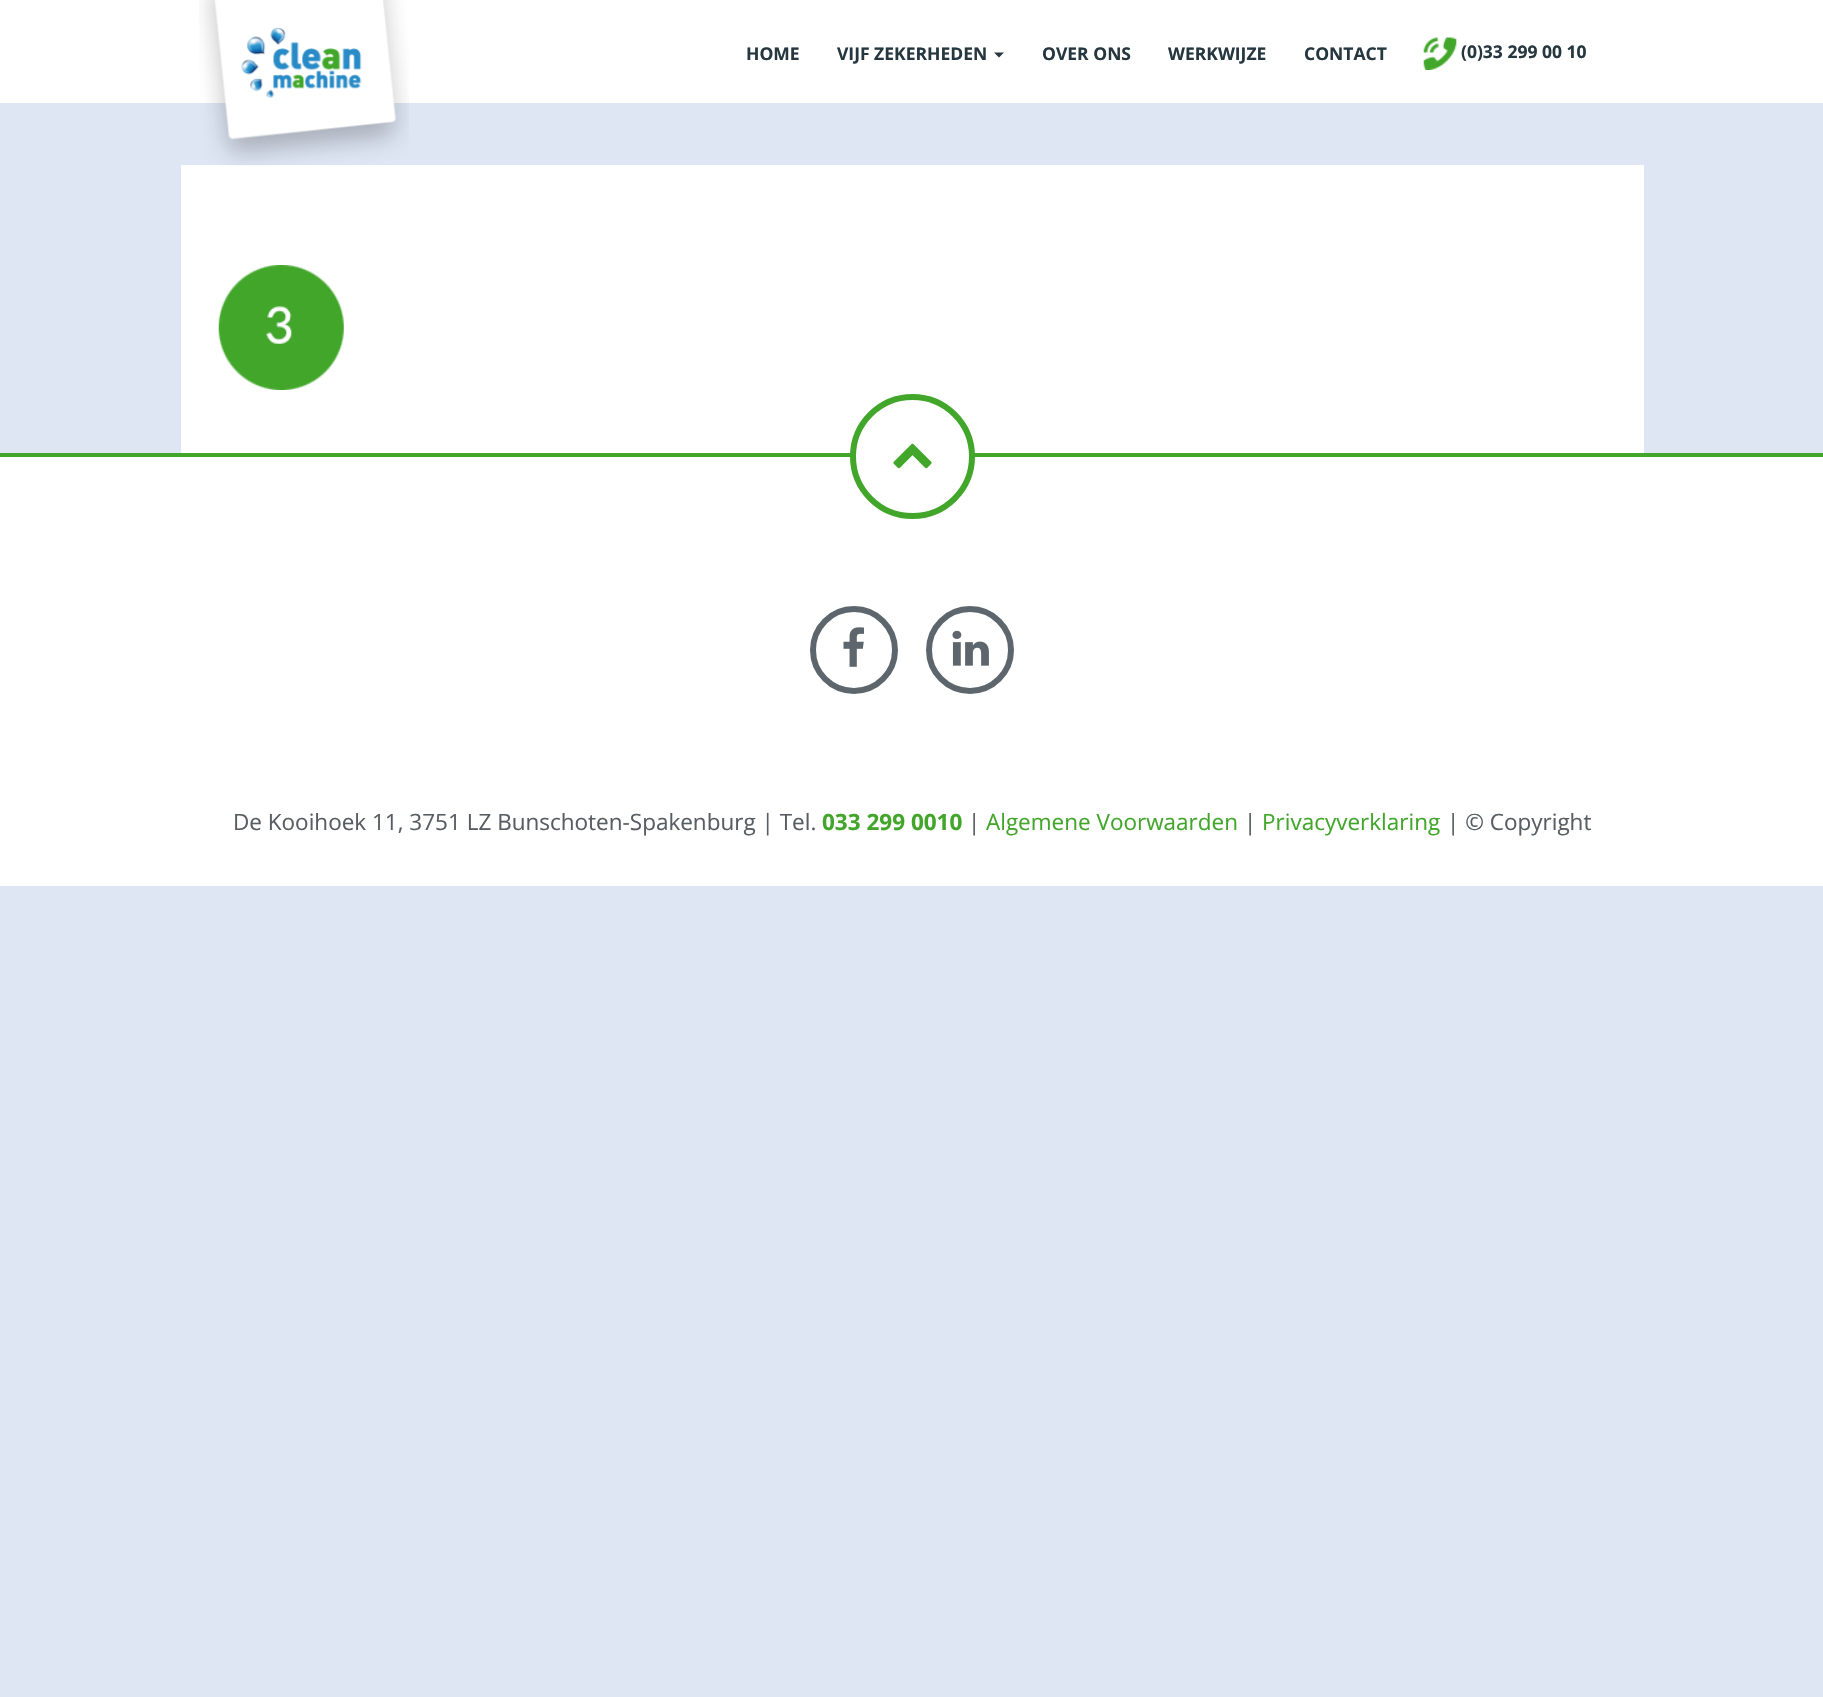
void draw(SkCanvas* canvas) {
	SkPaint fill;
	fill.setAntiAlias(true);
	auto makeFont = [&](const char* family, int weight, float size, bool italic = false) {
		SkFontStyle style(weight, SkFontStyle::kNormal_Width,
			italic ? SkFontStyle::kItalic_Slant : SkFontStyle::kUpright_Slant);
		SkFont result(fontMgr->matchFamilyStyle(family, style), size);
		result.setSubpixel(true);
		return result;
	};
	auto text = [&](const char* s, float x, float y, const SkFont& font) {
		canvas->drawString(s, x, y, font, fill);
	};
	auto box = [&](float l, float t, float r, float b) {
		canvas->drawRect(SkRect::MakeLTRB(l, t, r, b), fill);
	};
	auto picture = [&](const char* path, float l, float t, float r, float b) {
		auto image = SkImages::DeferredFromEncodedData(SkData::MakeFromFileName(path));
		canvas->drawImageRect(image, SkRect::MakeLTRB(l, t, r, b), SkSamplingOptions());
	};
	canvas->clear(0xFFDEE6F4);
	fill.setColor(0xFFFFFFFF);
	box(0, 0, 1823, 103);
	box(181, 165, 1644, 453);
	picture("image0.png", 199, 0, 409, 166);
	fill.setColor(0xFF263740);
	canvas->drawPath(SkPathBuilder().moveTo(994, 52.5f).lineTo(1004, 52.5f).lineTo(999, 57.5f).close().detach(), fill);
	picture("image1.png", 1423, 37, 1457, 70);
	picture("image2.png", 218, 265, 344, 390);
	fill.setColor(0xFFFFFFFF);
	box(0, 457, 1823, 886);
	fill.setColor(0xFF42A62B);
	box(0, 453, 1823, 457);
	fill.setColor(0xFFFFFFFF);
	canvas->drawCircle(912.5f, 456.5f, 59.5f, fill);
	fill.setStyle(SkPaint::kStroke_Style);
	fill.setStrokeWidth(6);
	fill.setColor(0xFF42A62B);
	canvas->drawCircle(912.5f, 456.5f, 59.5f, fill);
	picture("image3.png", 893, 443, 932, 469);
	fill.setColor(0xFF5E666D);
	canvas->drawCircle(854, 650, 41, fill);
	picture("image4.png", 843, 627, 864, 667);
	canvas->drawCircle(970, 650, 41, fill);
	picture("image5.png", 952, 630, 989, 666);
	auto font1 = makeFont("Open Sans", 700, 17.5f);
	fill.setStyle(SkPaint::kFill_Style);
	fill.setColor(0xFF263740);
	text("HOME", 746, 60, font1);
	text("VIJF ZEKERHEDEN", 837, 60, font1);
	text("OVER ONS", 1042, 60, font1);
	text("WERKWIJZE", 1168, 60, font1);
	text("CONTACT", 1304, 60, font1);
	text("(0)33 299 00 10", 1461, 58, font1);
	auto font2 = makeFont("Open Sans", 400, 22.5f);
	fill.setColor(0xFF575D63);
	text("De Kooihoek 11, 3751 LZ Bunschoten-Spakenburg | Tel.", 233, 830, font2);
	auto font3 = makeFont("Open Sans", 700, 22.5f);
	fill.setColor(0xFF42A62B);
	text("033 299 0010", 822, 830, font3);
	fill.setColor(0xFF575D63);
	text("|", 968, 830, font2);
	fill.setColor(0xFF42A62B);
	text("Algemene Voorwaarden", 986, 830, font2);
	fill.setColor(0xFF575D63);
	text("|", 1244, 830, font2);
	fill.setColor(0xFF42A62B);
	text("Privacyverklaring", 1262, 830, font2);
	fill.setColor(0xFF575D63);
	text("| © Copyright", 1447, 830, font2);
}
